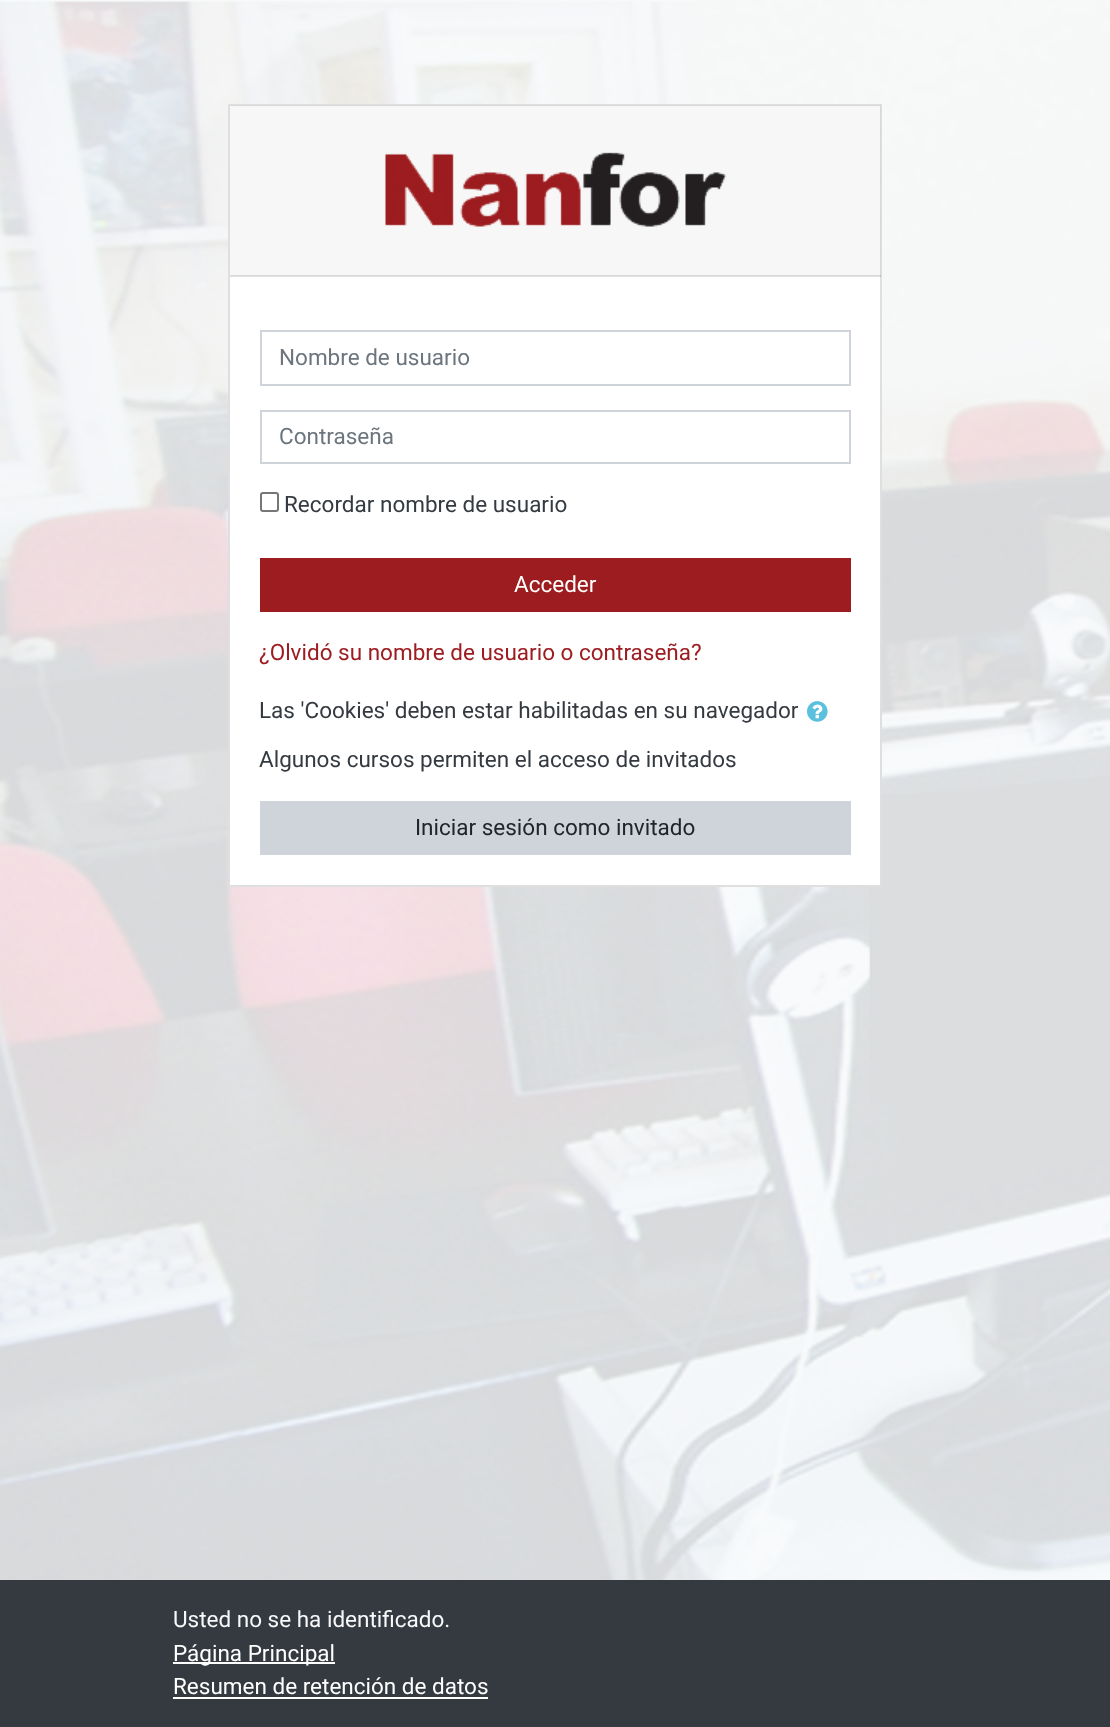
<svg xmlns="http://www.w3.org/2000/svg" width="1110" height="1727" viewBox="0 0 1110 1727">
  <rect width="100%" height="100%" fill="#ffffff"/>
  <image x="0" y="0" width="1110" height="1580" href="img1.png"/>
  <rect x="229" y="105" width="652" height="781" fill="#ffffff" stroke="#dfdfdf" stroke-width="2"/>
  <rect x="230" y="105" width="651" height="171" fill="#000000" fill-opacity="0.03"/>
  <rect x="230" y="275" width="651" height="2" fill="#000000" fill-opacity="0.12"/>
  <image x="385" y="152" width="342" height="75" href="img2.png"/>
  <rect x="261" y="331" width="589" height="54" fill="none" stroke="#ced4da" stroke-width="2"/>
  <text x="279" y="365" font-family="Roboto" font-size="22.5" fill="#6c757d">Nombre de usuario</text>
  <rect x="261" y="411" width="589" height="52" fill="none" stroke="#ced4da" stroke-width="2"/>
  <text x="279" y="444" font-family="Roboto" font-size="22.5" fill="#6c757d">Contraseña</text>
  <rect x="261" y="493" width="17" height="18" rx="2" fill="none" stroke="#767676" stroke-width="2"/>
  <text x="284" y="512" font-family="Roboto" font-size="22.5" fill="#343a40">Recordar nombre de usuario</text>
  <rect x="260" y="558" width="591" height="54" fill="#9d1c20"/>
  <text x="514" y="592" font-family="Roboto" font-size="22.5" fill="#ffffff">Acceder</text>
  <text x="259" y="660" font-family="Roboto" font-size="22.5" fill="#9d1c20">¿Olvidó su nombre de usuario o contraseña?</text>
  <text x="259" y="718" font-family="Roboto" font-size="22.5" fill="#343a40">Las 'Cookies' deben estar habilitadas en su navegador</text>
  <image x="807" y="701" width="21" height="21" href="img3.png"/>
  <text x="259" y="767" font-family="Roboto" font-size="22.5" fill="#343a40">Algunos cursos permiten el acceso de invitados</text>
  <rect x="260" y="801" width="591" height="54" fill="#ced4da"/>
  <text x="415" y="835" font-family="Roboto" font-size="22.5" fill="#212529">Iniciar sesión como invitado</text>
  <rect x="0" y="1580" width="1110" height="147" fill="#343a40"/>
  <text x="173" y="1627" font-family="Roboto" font-size="22.5" fill="#f8f9fa">Usted no se ha identificado.</text>
  <rect x="173" y="1662" width="162" height="2" fill="#ffffff"/>
  <text x="173" y="1661" font-family="Roboto" font-size="22.5" fill="#ffffff">Página Principal</text>
  <text x="173" y="1694" font-family="Roboto" font-size="22.5" fill="#ffffff">Resumen de retención de datos</text>
  <rect x="173" y="1697" width="315" height="2" fill="#ffffff"/>
</svg>
